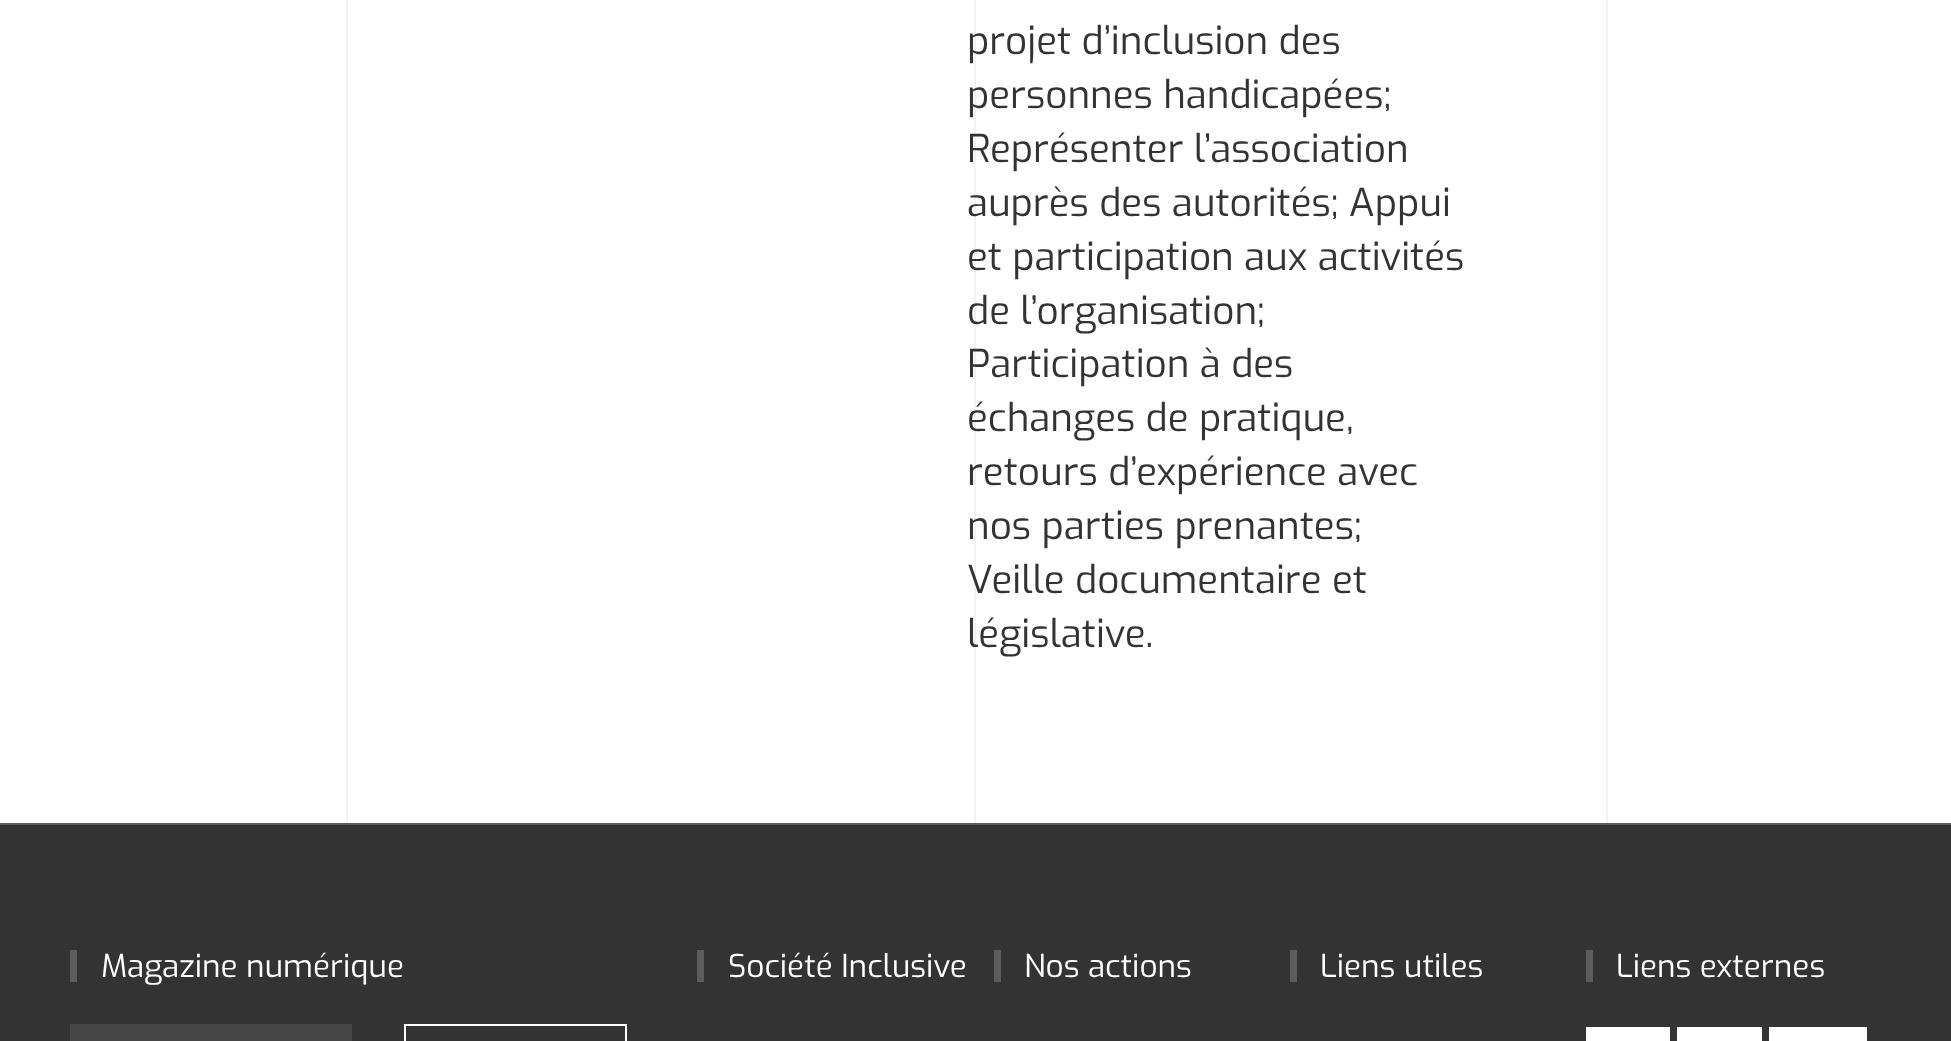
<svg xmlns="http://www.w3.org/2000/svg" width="1951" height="1041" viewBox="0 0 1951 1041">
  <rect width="100%" height="100%" fill="#ffffff"/>
  <image x="346" y="0" width="1262" height="823" href="img1.png"/>
  <text x="967" y="54" font-family="Exo" font-size="38.5" fill="#333333">projet d’inclusion des</text>
  <text x="967" y="108" font-family="Exo" font-size="38.5" fill="#333333">personnes handicapées;</text>
  <text x="967" y="162" font-family="Exo" font-size="38.5" fill="#333333">Représenter l’association</text>
  <text x="967" y="216" font-family="Exo" font-size="38.5" fill="#333333">auprès des autorités; Appui</text>
  <text x="967" y="270" font-family="Exo" font-size="38.5" fill="#333333">et participation aux activités</text>
  <text x="967" y="324" font-family="Exo" font-size="38.5" fill="#333333">de l’organisation;</text>
  <text x="967" y="377" font-family="Exo" font-size="38.5" fill="#333333">Participation à des</text>
  <text x="967" y="431" font-family="Exo" font-size="38.5" fill="#333333">échanges de pratique,</text>
  <text x="967" y="485" font-family="Exo" font-size="38.5" fill="#333333">retours d’expérience avec</text>
  <text x="967" y="539" font-family="Exo" font-size="38.5" fill="#333333">nos parties prenantes;</text>
  <text x="967" y="593" font-family="Exo" font-size="38.5" fill="#333333">Veille documentaire et</text>
  <text x="967" y="647" font-family="Exo" font-size="38.5" fill="#333333">législative.</text>
  <rect x="0" y="825" width="1951" height="216" fill="#333333"/>
  <rect x="0" y="823" width="1951" height="2" fill="#5c5c5c"/>
  <rect x="70" y="950" width="7" height="32" fill="#5c5c5c"/>
  <text x="101" y="977" font-family="Exo" font-size="31.5" fill="#ffffff">Magazine numérique</text>
  <rect x="70" y="1024" width="282" height="17" fill="#474747"/>
  <rect x="405" y="1025" width="221" height="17" fill="none" stroke="#ffffff" stroke-width="2"/>
  <rect x="697" y="950" width="7" height="32" fill="#5c5c5c"/>
  <text x="728" y="977" font-family="Exo" font-size="31.5" fill="#ffffff">Société Inclusive</text>
  <rect x="994" y="950" width="7" height="32" fill="#5c5c5c"/>
  <text x="1024" y="977" font-family="Exo" font-size="31.5" fill="#ffffff">Nos actions</text>
  <rect x="1290" y="950" width="7" height="32" fill="#5c5c5c"/>
  <text x="1320" y="977" font-family="Exo" font-size="31.5" fill="#ffffff">Liens utiles</text>
  <rect x="1586" y="950" width="7" height="32" fill="#5c5c5c"/>
  <text x="1616" y="977" font-family="Exo" font-size="31.5" fill="#ffffff">Liens externes</text>
  <rect x="1586" y="1027" width="84" height="14" fill="#ffffff"/>
  <rect x="1677" y="1027" width="85" height="14" fill="#ffffff"/>
  <rect x="1769" y="1027" width="98" height="14" fill="#ffffff"/>
</svg>
